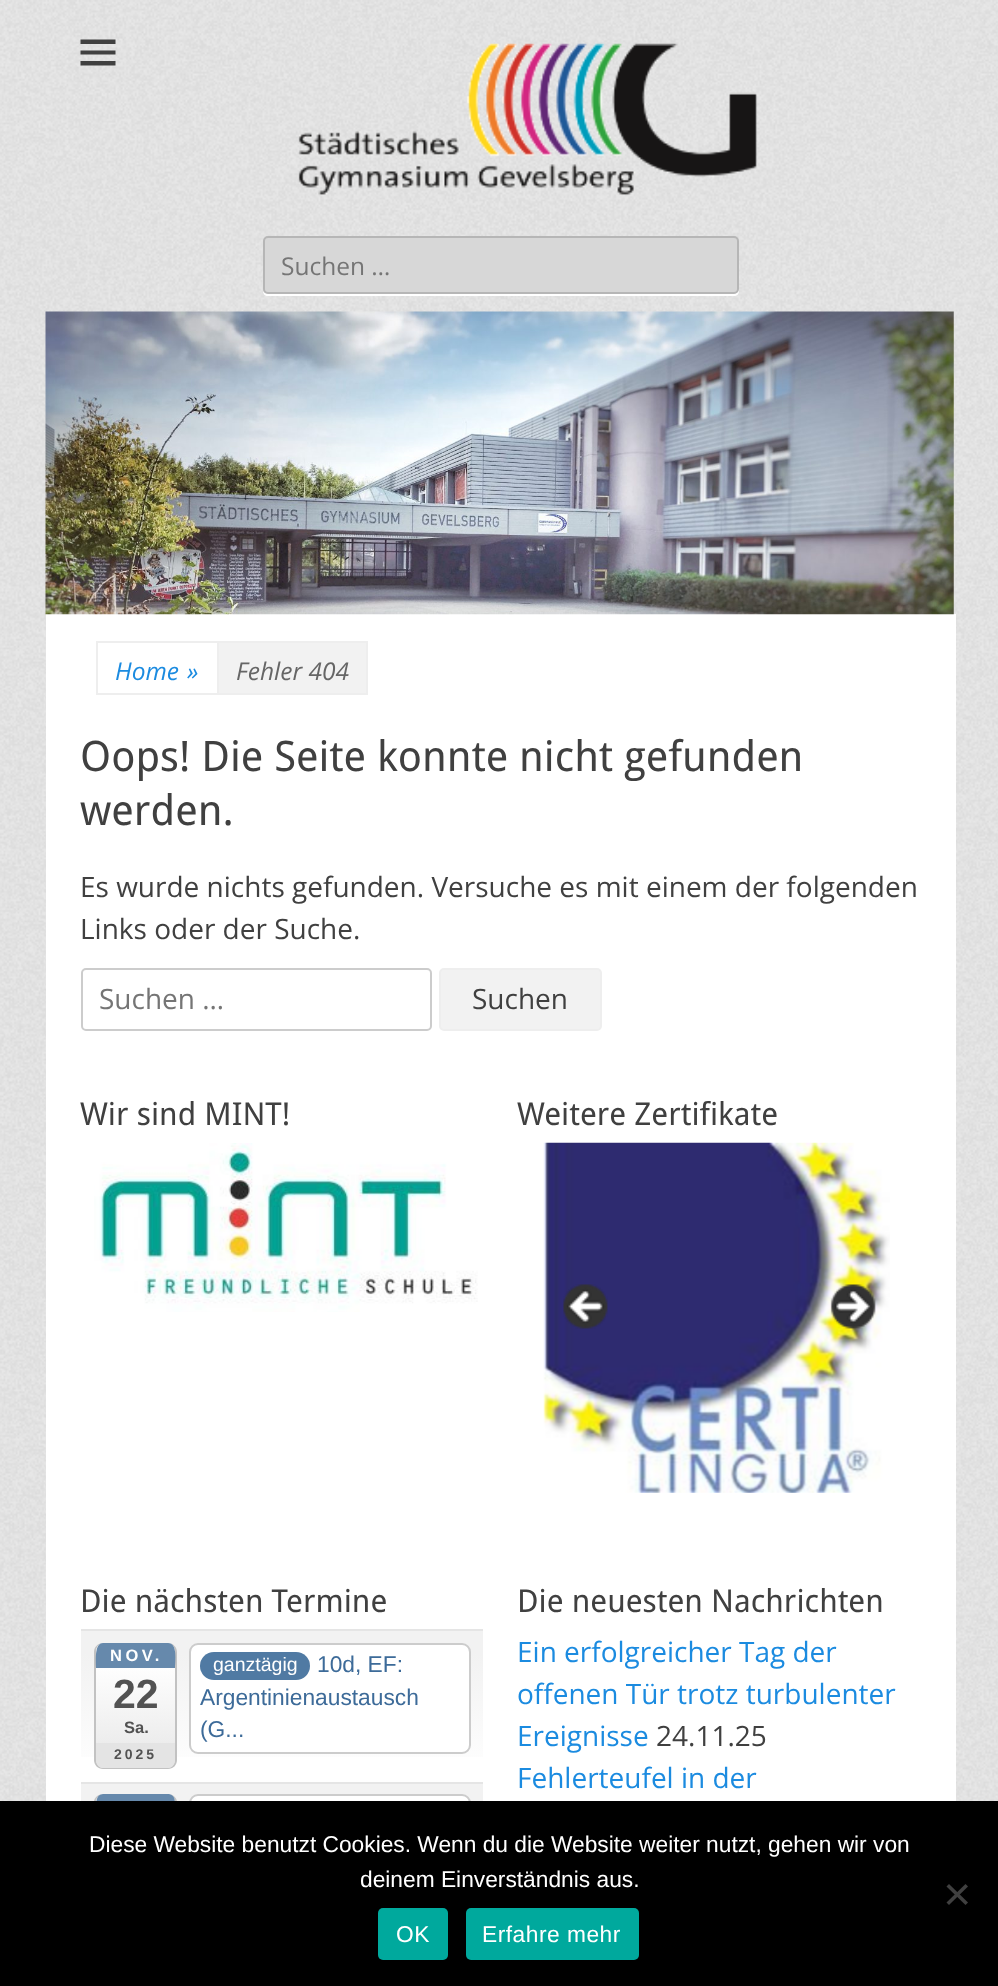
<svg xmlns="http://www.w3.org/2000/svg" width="998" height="1986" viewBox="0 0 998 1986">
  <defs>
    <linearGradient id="g1" gradientUnits="userSpaceOnUse" x1="282" y1="1631" x2="282" y2="1782"><stop offset="0" stop-color="#f2f2f2"/><stop offset="0.15" stop-color="#f2f2f2"/><stop offset="1" stop-color="#ffffff"/></linearGradient>
    <clipPath id="clip1"><rect x="95" y="1643" width="82" height="126" rx="9"/></clipPath>
    <linearGradient id="g2" gradientUnits="userSpaceOnUse" x1="136" y1="1643" x2="136" y2="1768"><stop offset="0" stop-color="#ffffff"/><stop offset="0.16" stop-color="#ffffff"/><stop offset="1" stop-color="#e7e7e7"/></linearGradient>
    <linearGradient id="g3" gradientUnits="userSpaceOnUse" x1="282" y1="1783" x2="282" y2="1932"><stop offset="0" stop-color="#f2f2f2"/><stop offset="0.15" stop-color="#f2f2f2"/><stop offset="1" stop-color="#ffffff"/></linearGradient>
    <clipPath id="clip2"><rect x="95" y="1794" width="82" height="128" rx="9"/></clipPath>
    <linearGradient id="g4" gradientUnits="userSpaceOnUse" x1="136" y1="1794" x2="136" y2="1920"><stop offset="0" stop-color="#ffffff"/><stop offset="0.16" stop-color="#ffffff"/><stop offset="1" stop-color="#e7e7e7"/></linearGradient>
  </defs>
  <rect width="100%" height="100%" fill="#ffffff"/>
  <image x="0" y="0" width="998" height="1801" href="img1.png"/>
  <path d="M80.5 65.5V61H115.5V65.5ZM80.5 39.5H115.5V44H80.5ZM80.5 54.5V50.5H115.5V54.5Z" fill="#404040"/>
  <image x="298" y="43" width="459" height="152" href="img2.png"/>
  <path d="M263 291C263 294 265 296 268 296H734C737 296 739 294 739 291V243L738 241V289C738 292 736 294 733 294H268C266 294 264 293 263 291Z" fill="#ffffff"/>
  <rect x="264" y="237" width="474" height="56" rx="4" fill="#d7d7d7" stroke="#b6b6b6" stroke-width="2"/>
  <text x="281" y="275" font-family="Open Sans" font-size="24.5" fill="#757575">Suchen …</text>
  <rect x="46" y="614" width="910" height="1187" fill="#ffffff"/>
  <image x="45" y="311" width="909" height="304" href="img3.png"/>
  <rect x="97" y="642" width="121" height="52" fill="none" stroke="#eeeeee" stroke-width="2"/>
  <text x="115" y="680" font-family="Open Sans" font-size="24.5" font-style="italic" fill="#1b8be0">Home</text>
  <text x="187" y="680" font-family="Open Sans" font-size="24.5" font-style="italic" fill="#1b8be0">»</text>
  <rect x="218" y="642" width="149" height="52" fill="#f2f2f2" stroke="#eeeeee" stroke-width="2"/>
  <text x="236" y="680" font-family="Open Sans" font-size="24.5" font-style="italic" fill="#666666">Fehler 404</text>
  <text x="80" y="771" font-family="Droid Sans" font-size="42" fill="#404040">Oops! Die Seite konnte nicht gefunden</text>
  <text x="80" y="825" font-family="Droid Sans" font-size="42" fill="#404040">werden.</text>
  <text x="80" y="897" font-family="Open Sans" font-size="28" fill="#404040">Es wurde nichts gefunden. Versuche es mit einem der folgenden</text>
  <text x="80" y="939" font-family="Open Sans" font-size="28" fill="#404040">Links oder der Suche.</text>
  <rect x="82" y="969" width="349" height="61" rx="4" fill="none" stroke="#cccccc" stroke-width="2"/>
  <text x="99" y="1009" font-family="Open Sans" font-size="28" fill="#757575">Suchen …</text>
  <rect x="440" y="969" width="161" height="61" rx="4" fill="#f2f2f2" stroke="#eeeeee" stroke-width="2"/>
  <text x="472" y="1009" font-family="Open Sans" font-size="28" fill="#404040">Suchen</text>
  <text x="80" y="1125" font-family="Droid Sans" font-size="31.5" fill="#404040">Wir sind MINT!</text>
  <image x="94" y="1143" width="384" height="169" href="img4.png"/>
  <text x="517" y="1125" font-family="Droid Sans" font-size="31.5" fill="#404040">Weitere Zertifikate</text>
  <image x="543" y="1142" width="347" height="351" href="img5.png"/>
  <image x="563" y="1284" width="45" height="45" href="img6.png"/>
  <image x="830" y="1284" width="46" height="45" href="img7.png"/>
  <text x="80" y="1612" font-family="Droid Sans" font-size="31.5" fill="#404040">Die nächsten Termine</text>
  <rect x="81" y="1631" width="402" height="126" fill="url(#g1)"/>
  <rect x="81" y="1629" width="402" height="2" fill="#e5e5e5"/>
  <g clip-path="url(#clip1)">
    <rect x="96" y="1643" width="79" height="125" fill="url(#g2)"/>
  </g>
  <path d="M103 1643H168C173 1643 177 1647 177 1652V1760C177 1765 173 1769 168 1769H103C98 1769 94 1765 94 1760V1652C94 1647 98 1643 103 1643ZM103 1643H168C172 1643 175 1647 175 1652V1760C175 1764 172 1768 168 1768H103C99 1768 96 1764 96 1760V1652C96 1647 99 1643 103 1643Z" fill="#c2c2c2" fill-rule="evenodd"/>
  <path d="M103 1643C94 1643 96 1662 96 1668H175C175 1662 178 1643 168 1643Z" fill="#6689ac"/>
  <text x="110" y="1661" font-family="Liberation Sans" font-size="16.5" font-weight="bold" letter-spacing="3.5" fill="#ffffff">NOV.</text>
  <text x="113" y="1708" font-family="Liberation Sans" font-size="41" font-weight="bold" fill="#525252">22</text>
  <text x="124" y="1733" font-family="Liberation Sans" font-size="16.5" font-weight="bold" fill="#525252">Sa.</text>
  <path d="M175 1760V1743H96V1760C96 1764 99 1768 103 1768H168C172 1768 175 1764 175 1760Z" fill="#e4e4e4"/>
  <text x="114" y="1759" font-family="Liberation Sans" font-size="14" font-weight="bold" letter-spacing="3" fill="#525252">2025</text>
  <rect x="190" y="1644" width="280" height="109" rx="8" fill="#ffffff" stroke="#cccccc" stroke-width="2"/>
  <rect x="200" y="1652" width="110" height="28" rx="14" fill="#507aa3"/>
  <text x="213" y="1671" font-family="Liberation Sans" font-size="19.5" fill="#ffffff">ganztägig</text>
  <text x="317" y="1672" font-family="Liberation Sans" font-size="22.75" fill="#3d6b99">10d, EF:</text>
  <text x="200" y="1705" font-family="Liberation Sans" font-size="22.75" fill="#3d6b99">Argentinienaustausch</text>
  <text x="200" y="1737" font-family="Liberation Sans" font-size="22.75" fill="#3d6b99">(G...</text>
  <rect x="81" y="1784" width="402" height="17" fill="url(#g3)"/>
  <rect x="81" y="1782" width="402" height="2" fill="#e5e5e5"/>
  <g clip-path="url(#clip2)">
    <rect x="96" y="1794" width="79" height="7" fill="url(#g4)"/>
  </g>
  <path d="M103 1794H168C173 1794 177 1798 177 1802V1913C177 1918 173 1922 168 1922H103C98 1922 94 1918 94 1913V1802C94 1798 98 1794 103 1794ZM103 1794H168C172 1794 175 1798 175 1802V1913C175 1917 172 1920 168 1920H103C99 1920 96 1917 96 1913V1802C96 1798 99 1794 103 1794Z" fill="#c2c2c2" fill-rule="evenodd"/>
  <path d="M103 1794H169C176 1795 175 1803 175 1808V1818H96V1808C96 1803 96 1794 103 1794Z" fill="#6689ac"/>
  <rect x="190" y="1795" width="280" height="77" rx="8" fill="#ffffff" stroke="#cccccc" stroke-width="2"/>
  <text x="517" y="1612" font-family="Droid Sans" font-size="31.5" fill="#404040">Die neuesten Nachrichten</text>
  <text x="517" y="1662" font-family="Open Sans" font-size="28" fill="#1b8be0">Ein erfolgreicher Tag der</text>
  <text x="517" y="1704" font-family="Open Sans" font-size="28" fill="#1b8be0">offenen Tür trotz turbulenter</text>
  <text x="517" y="1746" font-family="Open Sans" font-size="28" fill="#1b8be0">Ereignisse</text>
  <text x="656" y="1746" font-family="Open Sans" font-size="28" fill="#404040">24.11.25</text>
  <text x="517" y="1788" font-family="Open Sans" font-size="28" fill="#1b8be0">Fehlerteufel in der</text>
  <rect x="0" y="1801" width="998" height="185" fill="#000000"/>
  <text x="89" y="1852" font-family="Liberation Sans" font-size="22.75" fill="#ffffff">Diese Website benutzt Cookies. Wenn du die Website weiter nutzt, gehen wir von</text>
  <text x="360" y="1887" font-family="Liberation Sans" font-size="22.75" fill="#ffffff">deinem Einverständnis aus.</text>
  <path d="M965.5 1884L968 1886.5L949 1905L946.5 1902.5Z" fill="#404040"/>
  <path d="M946.5 1886.5L949 1884L968 1902.5L965.5 1905Z" fill="#404040"/>
  <rect x="378" y="1908" width="70" height="52" rx="5" fill="#00a99d"/>
  <text x="396" y="1942" font-family="Liberation Sans" font-size="22.75" letter-spacing="0.5" fill="#ffffff">OK</text>
  <rect x="466" y="1908" width="173" height="52" rx="5" fill="#00a99d"/>
  <text x="482" y="1942" font-family="Liberation Sans" font-size="22.75" letter-spacing="0.5" fill="#ffffff">Erfahre mehr</text>
</svg>
